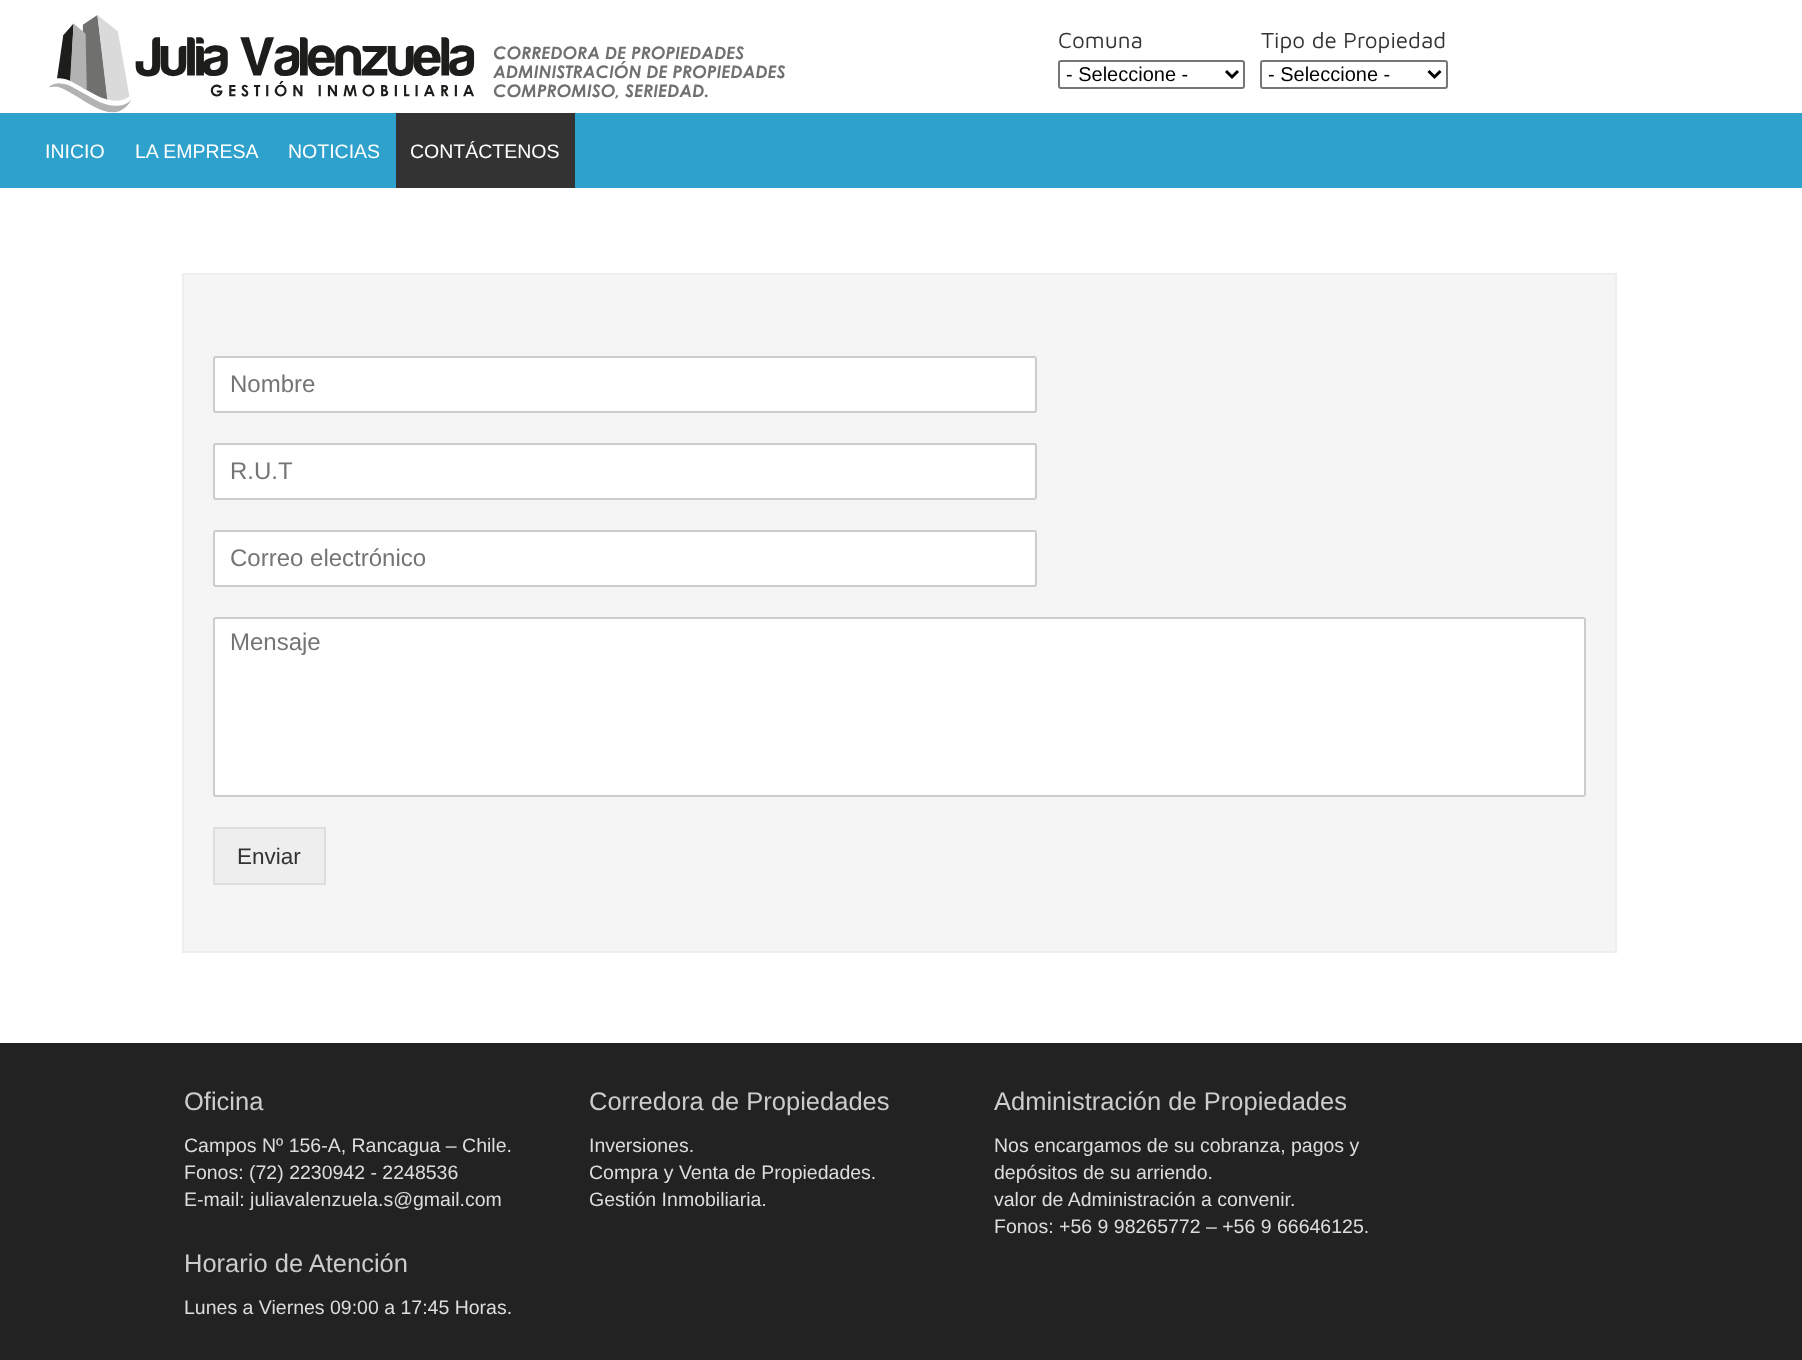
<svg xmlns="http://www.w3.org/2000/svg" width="1802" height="1360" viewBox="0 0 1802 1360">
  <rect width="100%" height="100%" fill="#ffffff"/>
  <image x="48" y="15" width="738" height="98" href="img1.png"/>
  <text x="1058" y="48" font-family="Maven Pro" font-size="22.5" fill="#333333">Comuna</text>
  <rect x="1059" y="61" width="185" height="27" rx="2" fill="none" stroke="#767676" stroke-width="2"/>
  <path d="M1226 71L1232 77L1238 71" fill="none" stroke="#000000" stroke-width="3"/>
  <text x="1066" y="81" font-family="Liberation Sans" font-size="20" fill="#000000">- Seleccione -</text>
  <text x="1261" y="48" font-family="Maven Pro" font-size="22.5" fill="#333333">Tipo de Propiedad</text>
  <rect x="1261" y="61" width="186" height="27" rx="2" fill="none" stroke="#767676" stroke-width="2"/>
  <path d="M1428.5 71L1434.5 77L1440.5 71" fill="none" stroke="#000000" stroke-width="3"/>
  <text x="1268" y="81" font-family="Liberation Sans" font-size="20" fill="#000000">- Seleccione -</text>
  <rect x="0" y="113" width="1802" height="75" fill="#2ea2cc"/>
  <text x="45" y="158" font-family="Liberation Sans" font-size="19.5" fill="#ffffff">INICIO</text>
  <text x="135" y="158" font-family="Liberation Sans" font-size="19.5" fill="#ffffff">LA EMPRESA</text>
  <text x="288" y="158" font-family="Liberation Sans" font-size="19.5" fill="#ffffff">NOTICIAS</text>
  <rect x="396" y="113" width="179" height="75" fill="#333333"/>
  <text x="410" y="158" font-family="Liberation Sans" font-size="19.5" fill="#ffffff">CONTÁCTENOS</text>
  <rect x="183" y="274" width="1433" height="678" fill="#f5f5f5" stroke="#eeeeee" stroke-width="2"/>
  <rect x="214" y="357" width="822" height="55" rx="2" fill="#ffffff" stroke="#cccccc" stroke-width="2"/>
  <text x="230" y="392" font-family="Liberation Sans" font-size="24" fill="#757575">Nombre</text>
  <rect x="214" y="444" width="822" height="55" rx="2" fill="#ffffff" stroke="#cccccc" stroke-width="2"/>
  <text x="230" y="479" font-family="Liberation Sans" font-size="24" fill="#757575">R.U.T</text>
  <rect x="214" y="531" width="822" height="55" rx="2" fill="#ffffff" stroke="#cccccc" stroke-width="2"/>
  <text x="230" y="566" font-family="Liberation Sans" font-size="24" fill="#757575">Correo electrónico</text>
  <rect x="214" y="618" width="1371" height="178" rx="2" fill="#ffffff" stroke="#cccccc" stroke-width="2"/>
  <text x="230" y="650" font-family="Liberation Sans" font-size="24" fill="#757575">Mensaje</text>
  <rect x="214" y="828" width="111" height="56" fill="#eeeeee" stroke="#dddddd" stroke-width="2"/>
  <text x="237" y="864" font-family="Liberation Sans" font-size="22.5" fill="#333333">Enviar</text>
  <rect x="0" y="1043" width="1802" height="317" fill="#222222"/>
  <text x="184" y="1110" font-family="Liberation Sans" font-size="25.5" fill="#cccccc">Oficina</text>
  <text x="184" y="1152" font-family="Liberation Sans" font-size="19.5" fill="#dddddd">Campos Nº 156-A, Rancagua – Chile.</text>
  <text x="184" y="1179" font-family="Liberation Sans" font-size="19.5" fill="#dddddd">Fonos: (72) 2230942 - 2248536</text>
  <text x="184" y="1206" font-family="Liberation Sans" font-size="19.5" fill="#dddddd">E-mail: juliavalenzuela.s@gmail.com</text>
  <text x="184" y="1272" font-family="Liberation Sans" font-size="25.5" fill="#cccccc">Horario de Atención</text>
  <text x="184" y="1314" font-family="Liberation Sans" font-size="19.5" fill="#dddddd">Lunes a Viernes 09:00 a 17:45 Horas.</text>
  <text x="589" y="1110" font-family="Liberation Sans" font-size="25.5" fill="#cccccc">Corredora de Propiedades</text>
  <text x="589" y="1152" font-family="Liberation Sans" font-size="19.5" fill="#dddddd">Inversiones.</text>
  <text x="589" y="1179" font-family="Liberation Sans" font-size="19.5" fill="#dddddd">Compra y Venta de Propiedades.</text>
  <text x="589" y="1206" font-family="Liberation Sans" font-size="19.5" fill="#dddddd">Gestión Inmobiliaria.</text>
  <text x="994" y="1110" font-family="Liberation Sans" font-size="25.5" fill="#cccccc">Administración de Propiedades</text>
  <text x="994" y="1152" font-family="Liberation Sans" font-size="19.5" fill="#dddddd">Nos encargamos de su cobranza, pagos y</text>
  <text x="994" y="1179" font-family="Liberation Sans" font-size="19.5" fill="#dddddd">depósitos de su arriendo.</text>
  <text x="994" y="1206" font-family="Liberation Sans" font-size="19.5" fill="#dddddd">valor de Administración a convenir.</text>
  <text x="994" y="1233" font-family="Liberation Sans" font-size="19.5" fill="#dddddd">Fonos: +56 9 98265772 – +56 9 66646125.</text>
</svg>
